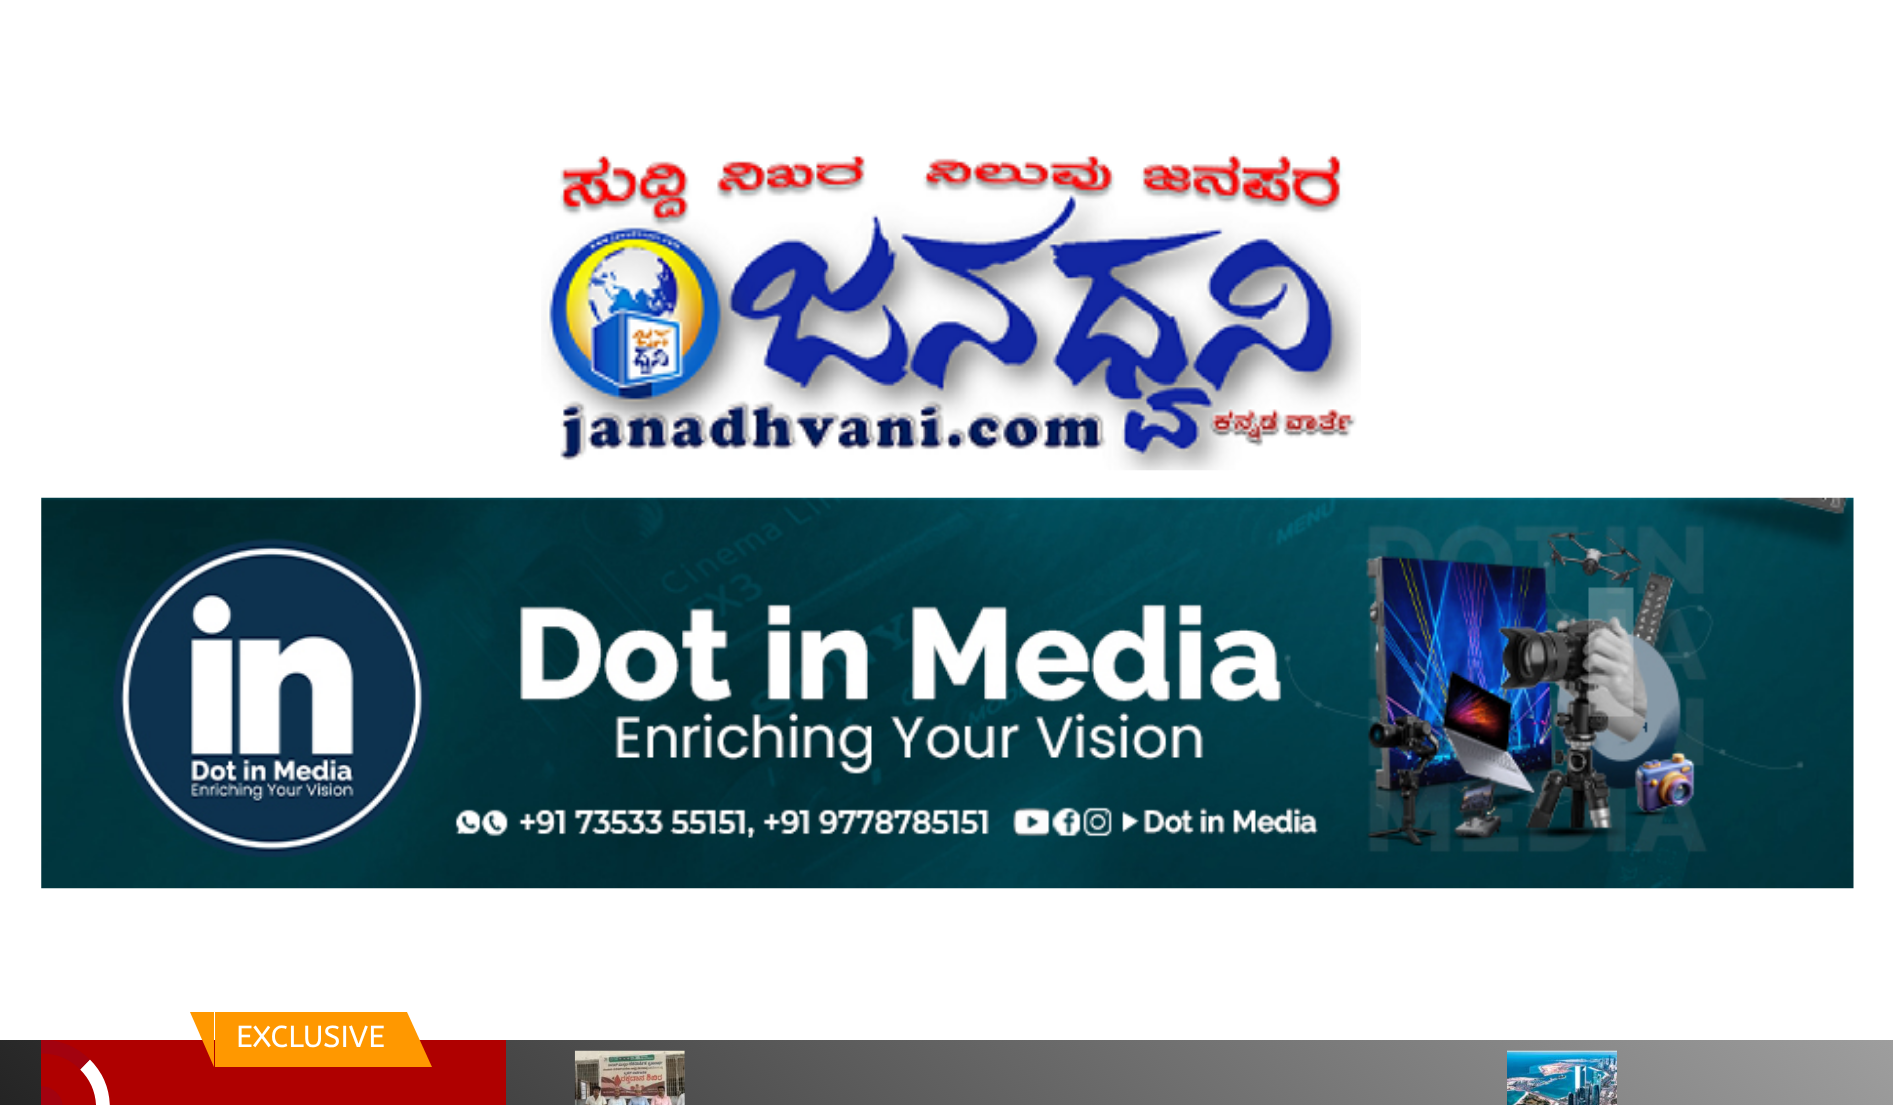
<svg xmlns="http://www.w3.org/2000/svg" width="1893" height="1105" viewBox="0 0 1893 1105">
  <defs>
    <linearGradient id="g1" gradientUnits="userSpaceOnUse" x1="440" y1="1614" x2="1455" y2="599"><stop offset="0" stop-color="#202020"/><stop offset="1" stop-color="#9e9e9e"/></linearGradient>
    <clipPath id="clip1"><rect x="41" y="1040" width="465" height="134"/></clipPath>
  </defs>
  <rect width="100%" height="100%" fill="#ffffff"/>
  <image x="541" y="153" width="820" height="318" href="img1.png"/>
  <image x="41" y="497" width="1813" height="392" href="img2.png"/>
  <rect x="0" y="1040" width="1893" height="65" fill="url(#g1)"/>
  <rect x="41" y="1040" width="465" height="65" fill="#af0000"/>
  <rect x="215" y="1012" width="192" height="55" fill="#ff9800"/>
  <path d="M190 1012H214V1067Z" fill="#ff9800"/>
  <text x="236" y="1047" font-family="ABeeZee" font-size="30.25" fill="#ffffff">EXCLUSIVE</text>
  <path d="M432 1067H407V1012Z" fill="#ff9800"/>
  <path d="M85 1064.5C109 1088.5 109 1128 85 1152" fill="none" stroke="#ffffff" stroke-width="13.8"/>
  <g clip-path="url(#clip1)">
    <path d="M-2.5 1064.5C21.5 1040.5 61 1040.5 85 1064.5" fill="none" stroke="#a2020f" stroke-width="13.8"/>
  </g>
  <path d="M41 1086C53 1086 63 1096 63 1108V1105C63 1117 53 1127 41 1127Z" fill="#a2020f"/>
  <image x="574" y="1050" width="111" height="55" href="img3.png"/>
  <image x="1507" y="1050" width="110" height="55" href="img4.png"/>
</svg>
